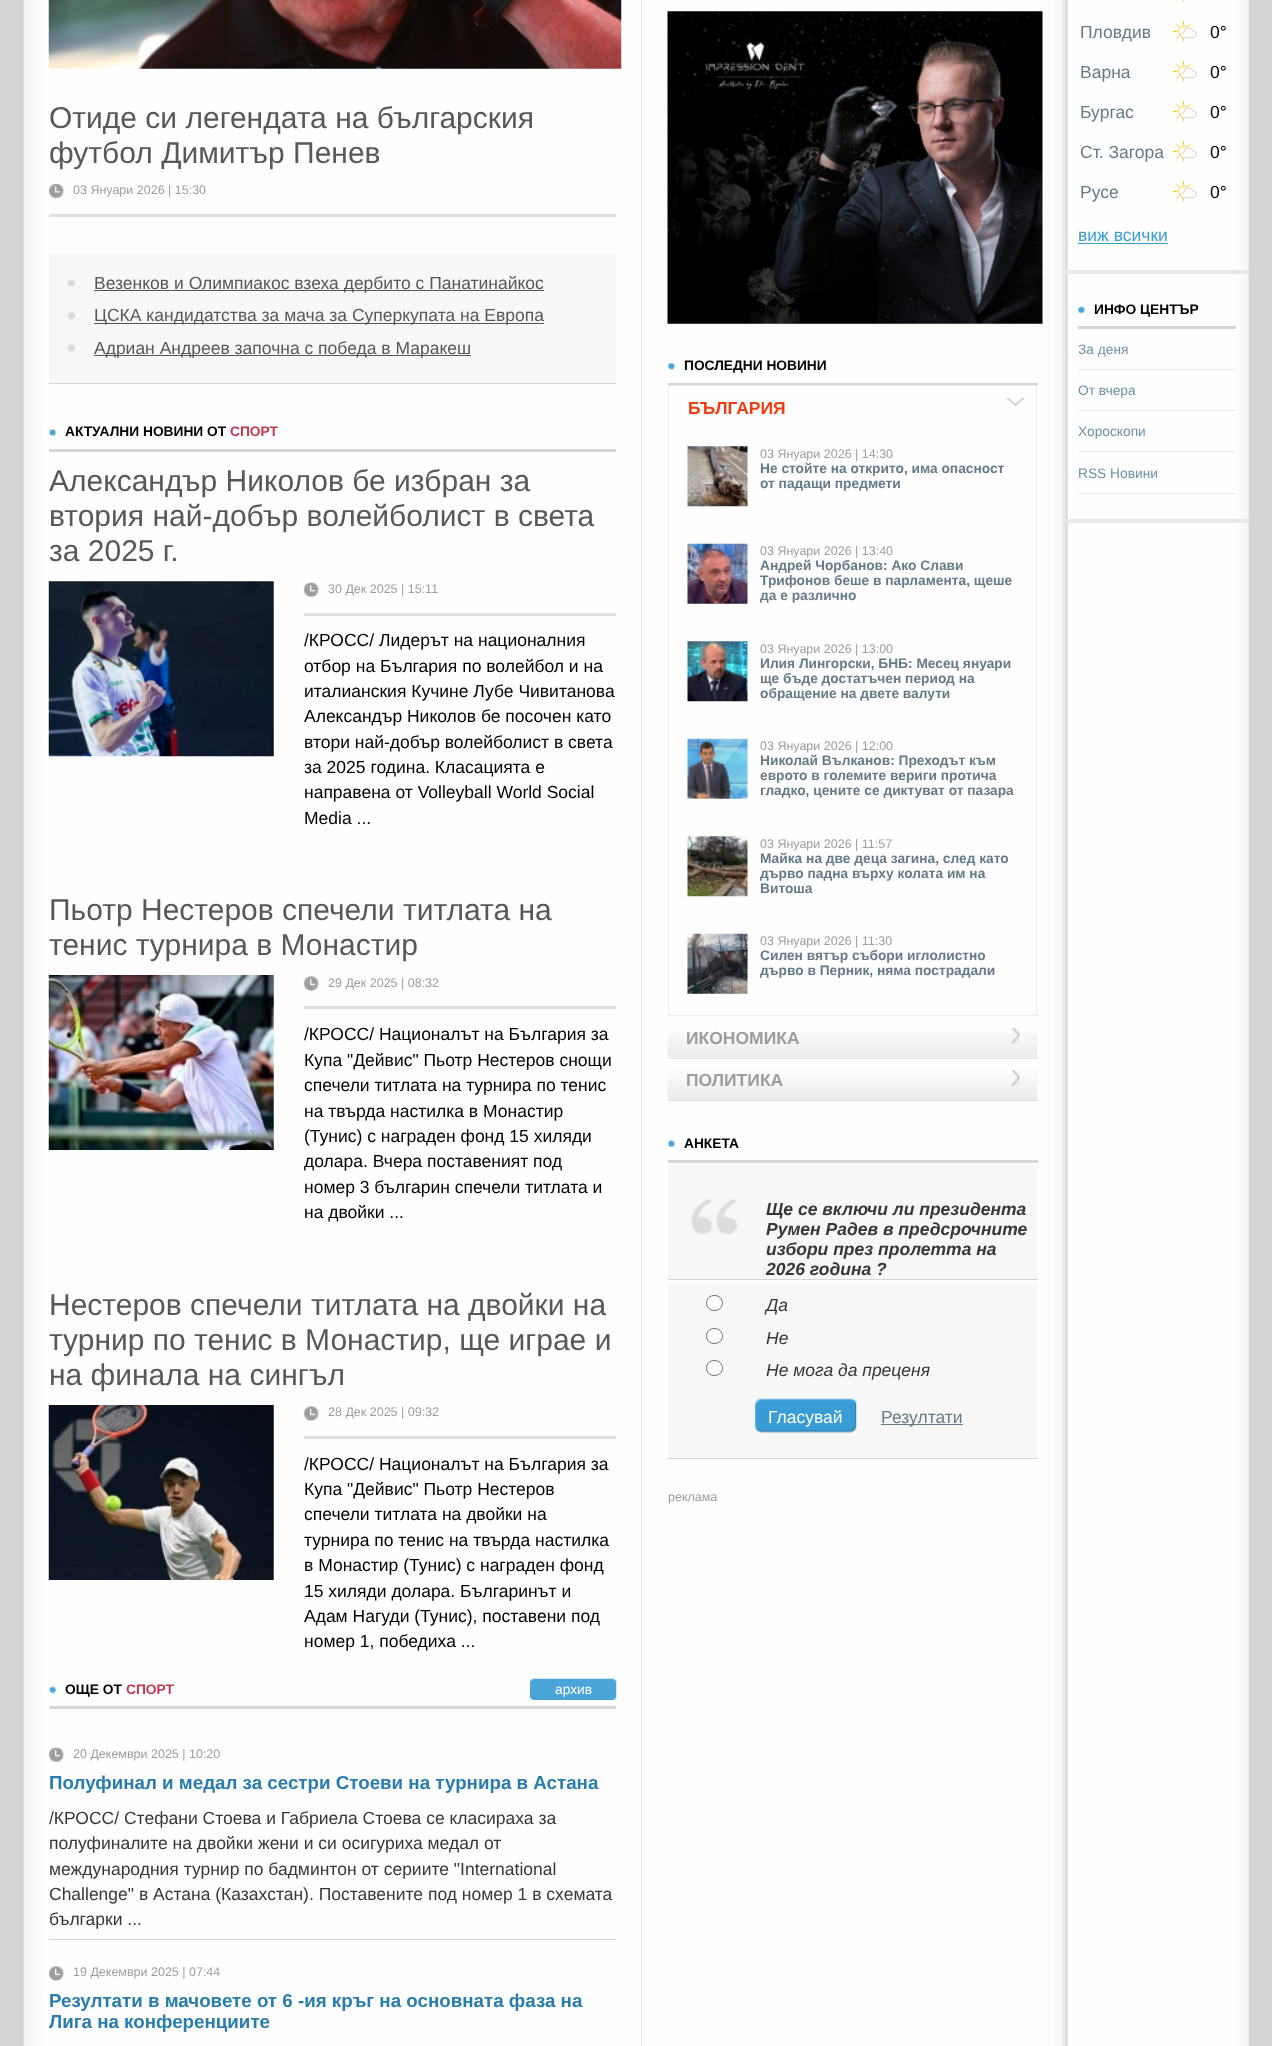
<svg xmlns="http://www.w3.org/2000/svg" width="1272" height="2046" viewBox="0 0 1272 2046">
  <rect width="100%" height="100%" fill="#d4d4d4"/>
  <image x="23" y="0" width="1226" height="2046" href="img1.png"/>
  <rect x="641" y="0" width="1" height="2046" fill="#ebeae8"/>
  <image x="48" y="0" width="574" height="69" href="img2.png"/>
  <text x="49" y="128" font-family="Liberation Sans" font-size="30" fill="#585858">Отиде си легендата на българския</text>
  <text x="49" y="163" font-family="Liberation Sans" font-size="30" fill="#585858">футбол Димитър Пенев</text>
  <rect x="49" y="214" width="567" height="3" fill="#dfdfdf"/>
  <image x="48" y="183" width="16" height="16" href="img3.png"/>
  <text x="73" y="194" font-family="Liberation Sans" font-size="12.5" fill="#9d9d9d">03 Януари 2026 | 15:30</text>
  <rect x="49" y="254" width="567" height="129" fill="#f7f7f7"/>
  <rect x="49" y="383" width="567" height="1" fill="#d5d5d5"/>
  <image x="67" y="279" width="8" height="8" href="img4.png"/>
  <rect x="94" y="290" width="450" height="1" fill="#585858"/>
  <text x="94" y="289" font-family="Liberation Sans" font-size="17.5" fill="#585858">Везенков и Олимпиакос взеха дербито с Панатинайкос</text>
  <image x="67" y="311" width="8" height="9" href="img5.png"/>
  <rect x="94" y="323" width="450" height="1" fill="#585858"/>
  <text x="94" y="321" font-family="Liberation Sans" font-size="17.5" fill="#585858">ЦСКА кандидатства за мача за Суперкупата на Европа</text>
  <image x="67" y="344" width="8" height="8" href="img4.png"/>
  <rect x="94" y="355" width="377" height="1" fill="#585858"/>
  <text x="94" y="354" font-family="Liberation Sans" font-size="17.5" fill="#585858">Адриан Андреев започна с победа в Маракеш</text>
  <rect x="49" y="449" width="567" height="3" fill="#d5d5d5"/>
  <image x="49" y="428" width="8" height="8" href="img6.png"/>
  <text x="65" y="436" font-family="Liberation Sans" font-size="13.75" font-weight="bold" fill="#000000">АКТУАЛНИ НОВИНИ ОТ</text>
  <text x="230" y="436" font-family="Liberation Sans" font-size="13.75" font-weight="bold" fill="#c2364d">СПОРТ</text>
  <text x="49" y="491" font-family="Liberation Sans" font-size="30" fill="#585858">Александър Николов бе избран за</text>
  <text x="49" y="526" font-family="Liberation Sans" font-size="30" fill="#585858">втория най-добър волейболист в света</text>
  <text x="49" y="561" font-family="Liberation Sans" font-size="30" fill="#585858">за 2025 г.</text>
  <image x="48" y="581" width="226" height="176" href="img7.png"/>
  <rect x="304" y="613" width="312" height="3" fill="#dfdfdf"/>
  <image x="303" y="582" width="16" height="16" href="img8.png"/>
  <text x="328" y="593" font-family="Liberation Sans" font-size="12.5" fill="#9d9d9d">30 Дек 2025 | 15:11</text>
  <text x="304" y="646" font-family="Liberation Sans" font-size="17.5" fill="#000000">/КРОСС/ Лидерът на националния</text>
  <text x="304" y="672" font-family="Liberation Sans" font-size="17.5" fill="#000000">отбор на България по волейбол и на</text>
  <text x="304" y="697" font-family="Liberation Sans" font-size="17.5" fill="#000000">италианския Кучине Лубе Чивитанова</text>
  <text x="304" y="722" font-family="Liberation Sans" font-size="17.5" fill="#000000">Александър Николов бе посочен като</text>
  <text x="304" y="748" font-family="Liberation Sans" font-size="17.5" fill="#000000">втори най-добър волейболист в света</text>
  <text x="304" y="773" font-family="Liberation Sans" font-size="17.5" fill="#000000">за 2025 година. Класацията е</text>
  <text x="304" y="798" font-family="Liberation Sans" font-size="17.5" fill="#000000">направена от Volleyball World Social</text>
  <text x="304" y="824" font-family="Liberation Sans" font-size="17.5" fill="#000000">Media ...</text>
  <text x="49" y="920" font-family="Liberation Sans" font-size="30" fill="#585858">Пьотр Нестеров спечели титлата на</text>
  <text x="49" y="955" font-family="Liberation Sans" font-size="30" fill="#585858">тенис турнира в Монастир</text>
  <image x="48" y="975" width="226" height="175" href="img9.png"/>
  <rect x="304" y="1006" width="312" height="3" fill="#dfdfdf"/>
  <image x="303" y="976" width="16" height="15" href="img10.png"/>
  <text x="328" y="987" font-family="Liberation Sans" font-size="12.5" fill="#9d9d9d">29 Дек 2025 | 08:32</text>
  <text x="304" y="1040" font-family="Liberation Sans" font-size="17.5" fill="#000000">/КРОСС/ Националът на България за</text>
  <text x="304" y="1066" font-family="Liberation Sans" font-size="17.5" fill="#000000">Купа "Дейвис" Пьотр Нестеров снощи</text>
  <text x="304" y="1091" font-family="Liberation Sans" font-size="17.5" fill="#000000">спечели титлата на турнира по тенис</text>
  <text x="304" y="1117" font-family="Liberation Sans" font-size="17.5" fill="#000000">на твърда настилка в Монастир</text>
  <text x="304" y="1142" font-family="Liberation Sans" font-size="17.5" fill="#000000">(Тунис) с награден фонд 15 хиляди</text>
  <text x="304" y="1167" font-family="Liberation Sans" font-size="17.5" fill="#000000">долара. Вчера поставеният под</text>
  <text x="304" y="1193" font-family="Liberation Sans" font-size="17.5" fill="#000000">номер 3 българин спечели титлата и</text>
  <text x="304" y="1218" font-family="Liberation Sans" font-size="17.5" fill="#000000">на двойки ...</text>
  <text x="49" y="1315" font-family="Liberation Sans" font-size="30" fill="#585858">Нестеров спечели титлата на двойки на</text>
  <text x="49" y="1350" font-family="Liberation Sans" font-size="30" fill="#585858">турнир по тенис в Монастир, ще играе и</text>
  <text x="49" y="1385" font-family="Liberation Sans" font-size="30" fill="#585858">на финала на сингъл</text>
  <image x="48" y="1405" width="226" height="175" href="img11.png"/>
  <rect x="304" y="1436" width="312" height="3" fill="#dfdfdf"/>
  <image x="303" y="1406" width="16" height="15" href="img10.png"/>
  <text x="328" y="1416" font-family="Liberation Sans" font-size="12.5" fill="#9d9d9d">28 Дек 2025 | 09:32</text>
  <text x="304" y="1470" font-family="Liberation Sans" font-size="17.5" fill="#000000">/КРОСС/ Националът на България за</text>
  <text x="304" y="1495" font-family="Liberation Sans" font-size="17.5" fill="#000000">Купа "Дейвис" Пьотр Нестеров</text>
  <text x="304" y="1520" font-family="Liberation Sans" font-size="17.5" fill="#000000">спечели титлата на двойки на</text>
  <text x="304" y="1546" font-family="Liberation Sans" font-size="17.5" fill="#000000">турнира по тенис на твърда настилка</text>
  <text x="304" y="1571" font-family="Liberation Sans" font-size="17.5" fill="#000000">в Монастир (Тунис) с награден фонд</text>
  <text x="304" y="1597" font-family="Liberation Sans" font-size="17.5" fill="#000000">15 хиляди долара. Българинът и</text>
  <text x="304" y="1622" font-family="Liberation Sans" font-size="17.5" fill="#000000">Адам Нагуди (Тунис), поставени под</text>
  <text x="304" y="1647" font-family="Liberation Sans" font-size="17.5" fill="#000000">номер 1, победиха ...</text>
  <rect x="49" y="1706" width="567" height="3" fill="#d5d5d5"/>
  <image x="48" y="1686" width="9" height="8" href="img12.png"/>
  <text x="65" y="1694" font-family="Liberation Sans" font-size="13.75" font-weight="bold" fill="#000000">ОЩЕ ОТ</text>
  <text x="126" y="1694" font-family="Liberation Sans" font-size="13.75" font-weight="bold" fill="#c2364d">СПОРТ</text>
  <image x="530" y="1678" width="87" height="22" href="img13.png"/>
  <text x="555" y="1694" font-family="Liberation Sans" font-size="13.75" fill="#ffffff">архив</text>
  <image x="48" y="1747" width="16" height="16" href="img8.png"/>
  <text x="73" y="1758" font-family="Liberation Sans" font-size="12.5" fill="#9d9d9d">20 Декември 2025 | 10:20</text>
  <text x="49" y="1789" font-family="Liberation Sans" font-size="18.75" font-weight="bold" fill="#297dad">Полуфинал и медал за сестри Стоеви на турнира в Астана</text>
  <rect x="49" y="1939" width="567" height="1" fill="#d5d5d5"/>
  <text x="49" y="1824" font-family="Liberation Sans" font-size="17.5" fill="#373737">/КРОСС/ Стефани Стоева и Габриела Стоева се класираха за</text>
  <text x="49" y="1849" font-family="Liberation Sans" font-size="17.5" fill="#373737">полуфиналите на двойки жени и си осигуриха медал от</text>
  <text x="49" y="1875" font-family="Liberation Sans" font-size="17.5" fill="#373737">международния турнир по бадминтон от сериите "International</text>
  <text x="49" y="1900" font-family="Liberation Sans" font-size="17.5" fill="#373737">Challenge" в Астана (Казахстан). Поставените под номер 1 в схемата</text>
  <text x="49" y="1925" font-family="Liberation Sans" font-size="17.5" fill="#373737">българки ...</text>
  <image x="48" y="1966" width="16" height="15" href="img10.png"/>
  <text x="73" y="1976" font-family="Liberation Sans" font-size="12.5" fill="#9d9d9d">19 Декември 2025 | 07:44</text>
  <text x="49" y="2007" font-family="Liberation Sans" font-size="18.75" font-weight="bold" fill="#297dad">Резултати в мачовете от 6 -ия кръг на основната фаза на</text>
  <text x="49" y="2028" font-family="Liberation Sans" font-size="18.75" font-weight="bold" fill="#297dad">Лига на конференциите</text>
  <image x="667" y="11" width="376" height="313" href="img14.png"/>
  <rect x="668" y="383" width="370" height="2" fill="#d5d5d5"/>
  <image x="667" y="362" width="8" height="8" href="img15.png"/>
  <text x="684" y="370" font-family="Liberation Sans" font-size="13.75" font-weight="bold" fill="#000000">ПОСЛЕДНИ НОВИНИ</text>
  <rect x="668" y="385" width="370" height="1" fill="#ececec"/>
  <rect x="1036" y="385" width="1" height="631" fill="#ececec"/>
  <rect x="668" y="385" width="1" height="43" fill="#ececec"/>
  <text x="688" y="414" font-family="Liberation Sans" font-size="17.5" font-weight="bold" fill="#f03c12">БЪЛГАРИЯ</text>
  <image x="1006" y="397" width="19" height="9" href="img16.png"/>
  <rect x="668" y="1015" width="370" height="1" fill="#ececec"/>
  <rect x="668" y="428" width="1" height="588" fill="#ececec"/>
  <image x="687" y="446" width="61" height="61" href="img17.png"/>
  <text x="760" y="458" font-family="Liberation Sans" font-size="12.5" fill="#9d9d9d">03 Януари 2026 | 14:30</text>
  <text x="760" y="473" font-family="Liberation Sans" font-size="13.75" font-weight="bold" fill="#667b86">Не стойте на открито, има опасност</text>
  <text x="760" y="488" font-family="Liberation Sans" font-size="13.75" font-weight="bold" fill="#667b86">от падащи предмети</text>
  <image x="687" y="543" width="61" height="61" href="img18.png"/>
  <text x="760" y="555" font-family="Liberation Sans" font-size="12.5" fill="#9d9d9d">03 Януари 2026 | 13:40</text>
  <text x="760" y="570" font-family="Liberation Sans" font-size="13.75" font-weight="bold" fill="#667b86">Андрей Чорбанов: Ако Слави</text>
  <text x="760" y="585" font-family="Liberation Sans" font-size="13.75" font-weight="bold" fill="#667b86">Трифонов беше в парламента, щеше</text>
  <text x="760" y="600" font-family="Liberation Sans" font-size="13.75" font-weight="bold" fill="#667b86">да е различно</text>
  <image x="687" y="641" width="61" height="61" href="img19.png"/>
  <text x="760" y="653" font-family="Liberation Sans" font-size="12.5" fill="#9d9d9d">03 Януари 2026 | 13:00</text>
  <text x="760" y="668" font-family="Liberation Sans" font-size="13.75" font-weight="bold" fill="#667b86">Илия Лингорски, БНБ: Месец януари</text>
  <text x="760" y="683" font-family="Liberation Sans" font-size="13.75" font-weight="bold" fill="#667b86">ще бъде достатъчен период на</text>
  <text x="760" y="698" font-family="Liberation Sans" font-size="13.75" font-weight="bold" fill="#667b86">обращение на двете валути</text>
  <image x="687" y="738" width="61" height="61" href="img20.png"/>
  <text x="760" y="750" font-family="Liberation Sans" font-size="12.5" fill="#9d9d9d">03 Януари 2026 | 12:00</text>
  <text x="760" y="765" font-family="Liberation Sans" font-size="13.75" font-weight="bold" fill="#667b86">Николай Вълканов: Преходът към</text>
  <text x="760" y="780" font-family="Liberation Sans" font-size="13.75" font-weight="bold" fill="#667b86">еврото в големите вериги протича</text>
  <text x="760" y="795" font-family="Liberation Sans" font-size="13.75" font-weight="bold" fill="#667b86">гладко, цените се диктуват от пазара</text>
  <image x="687" y="836" width="61" height="61" href="img21.png"/>
  <text x="760" y="848" font-family="Liberation Sans" font-size="12.5" fill="#9d9d9d">03 Януари 2026 | 11:57</text>
  <text x="760" y="863" font-family="Liberation Sans" font-size="13.75" font-weight="bold" fill="#667b86">Майка на две деца загина, след като</text>
  <text x="760" y="878" font-family="Liberation Sans" font-size="13.75" font-weight="bold" fill="#667b86">дърво падна върху колата им на</text>
  <text x="760" y="893" font-family="Liberation Sans" font-size="13.75" font-weight="bold" fill="#667b86">Витоша</text>
  <image x="687" y="933" width="61" height="61" href="img22.png"/>
  <text x="760" y="945" font-family="Liberation Sans" font-size="12.5" fill="#9d9d9d">03 Януари 2026 | 11:30</text>
  <text x="760" y="960" font-family="Liberation Sans" font-size="13.75" font-weight="bold" fill="#667b86">Силен вятър събори иглолистно</text>
  <text x="760" y="975" font-family="Liberation Sans" font-size="13.75" font-weight="bold" fill="#667b86">дърво в Перник, няма пострадали</text>
  <image x="667" y="1033" width="371" height="26" href="img23.png"/>
  <rect x="668" y="1058" width="370" height="1" fill="#dedede"/>
  <text x="686" y="1044" font-family="Liberation Sans" font-size="17.5" font-weight="bold" fill="#9d9d9d">ИКОНОМИКА</text>
  <image x="1011" y="1027" width="9" height="17" href="img24.png"/>
  <image x="667" y="1058" width="371" height="42" href="img25.png"/>
  <rect x="668" y="1100" width="370" height="1" fill="#dedede"/>
  <text x="686" y="1086" font-family="Liberation Sans" font-size="17.5" font-weight="bold" fill="#9d9d9d">ПОЛИТИКА</text>
  <image x="1011" y="1070" width="9" height="16" href="img26.png"/>
  <rect x="668" y="1160" width="370" height="3" fill="#d5d5d5"/>
  <image x="667" y="1140" width="8" height="8" href="img27.png"/>
  <text x="684" y="1148" font-family="Liberation Sans" font-size="13.75" font-weight="bold" fill="#000000">АНКЕТА</text>
  <rect x="668" y="1165" width="370" height="114" fill="#f7f7f7"/>
  <rect x="668" y="1279" width="370" height="1" fill="#d5d5d5"/>
  <image x="691" y="1199" width="47" height="35" href="img28.png"/>
  <text x="766" y="1215" font-family="Liberation Sans" font-size="17.5" font-weight="bold" font-style="italic" fill="#373737">Ще се включи ли президента</text>
  <text x="766" y="1235" font-family="Liberation Sans" font-size="17.5" font-weight="bold" font-style="italic" fill="#373737">Румен Радев в предсрочните</text>
  <text x="766" y="1255" font-family="Liberation Sans" font-size="17.5" font-weight="bold" font-style="italic" fill="#373737">избори през пролетта на</text>
  <text x="766" y="1275" font-family="Liberation Sans" font-size="17.5" font-weight="bold" font-style="italic" fill="#373737">2026 година ?</text>
  <rect x="668" y="1283" width="370" height="175" fill="#f7f7f7"/>
  <rect x="668" y="1458" width="370" height="1" fill="#d5d5d5"/>
  <rect x="706.5" y="1295.5" width="16" height="15" rx="7.5" fill="#ffffff" stroke="#767676"/>
  <text x="766" y="1311" font-family="Liberation Sans" font-size="17.5" font-style="italic" fill="#373737">Да</text>
  <rect x="706.5" y="1328.5" width="16" height="15" rx="7.5" fill="#ffffff" stroke="#767676"/>
  <text x="766" y="1344" font-family="Liberation Sans" font-size="17.5" font-style="italic" fill="#373737">Не</text>
  <rect x="706.5" y="1360.5" width="16" height="15" rx="7.5" fill="#ffffff" stroke="#767676"/>
  <text x="766" y="1376" font-family="Liberation Sans" font-size="17.5" font-style="italic" fill="#373737">Не мога да преценя</text>
  <image x="755" y="1398" width="102" height="35" href="img29.png"/>
  <text x="768" y="1423" font-family="Liberation Sans" font-size="17.5" fill="#ffffff">Гласувай</text>
  <rect x="881" y="1424" width="82" height="1" fill="#667b86"/>
  <text x="881" y="1423" font-family="Liberation Sans" font-size="17.5" fill="#667b86">Резултати</text>
  <text x="668" y="1501" font-family="Liberation Sans" font-size="12.5" fill="#9d9d9d">реклама</text>
  <rect x="1065" y="270" width="184" height="4" fill="#e8e8e8"/>
  <rect x="1183" y="0" width="1" height="1" fill="#fecc08"/>
  <text x="1080" y="38" font-family="Liberation Sans" font-size="17.5" fill="#667b86">Пловдив</text>
  <image x="1173" y="21" width="24" height="20" href="img30.png"/>
  <text x="1210" y="38" font-family="Liberation Sans" font-size="17.5" fill="#000000">0°</text>
  <text x="1080" y="78" font-family="Liberation Sans" font-size="17.5" fill="#667b86">Варна</text>
  <image x="1173" y="61" width="24" height="20" href="img30.png"/>
  <text x="1210" y="78" font-family="Liberation Sans" font-size="17.5" fill="#000000">0°</text>
  <text x="1080" y="118" font-family="Liberation Sans" font-size="17.5" fill="#667b86">Бургас</text>
  <image x="1173" y="101" width="24" height="20" href="img30.png"/>
  <text x="1210" y="118" font-family="Liberation Sans" font-size="17.5" fill="#000000">0°</text>
  <text x="1080" y="158" font-family="Liberation Sans" font-size="17.5" fill="#667b86">Ст. Загора</text>
  <image x="1173" y="141" width="24" height="20" href="img30.png"/>
  <text x="1210" y="158" font-family="Liberation Sans" font-size="17.5" fill="#000000">0°</text>
  <text x="1080" y="198" font-family="Liberation Sans" font-size="17.5" fill="#667b86">Русе</text>
  <image x="1173" y="181" width="24" height="20" href="img30.png"/>
  <text x="1210" y="198" font-family="Liberation Sans" font-size="17.5" fill="#000000">0°</text>
  <text x="1078" y="241" font-family="Liberation Sans" font-size="17.5" fill="#399cd4">виж всички</text>
  <rect x="1078" y="243" width="90" height="1" fill="#399cd4"/>
  <rect x="1065" y="519" width="184" height="4" fill="#e8e8e8"/>
  <rect x="1078" y="326" width="158" height="3" fill="#d5d5d5"/>
  <image x="1077" y="306" width="8" height="8" href="img31.png"/>
  <text x="1094" y="314" font-family="Liberation Sans" font-size="13.75" font-weight="bold" fill="#000000">ИНФО ЦЕНТЪР</text>
  <rect x="1078" y="369" width="158" height="1" fill="#eaeaea"/>
  <text x="1078" y="354" font-family="Liberation Sans" font-size="13.75" fill="#6e92a5">За деня</text>
  <rect x="1078" y="410" width="158" height="1" fill="#eaeaea"/>
  <text x="1078" y="395" font-family="Liberation Sans" font-size="13.75" fill="#6e92a5">От вчера</text>
  <rect x="1078" y="451" width="158" height="1" fill="#eaeaea"/>
  <text x="1078" y="436" font-family="Liberation Sans" font-size="13.75" fill="#6e92a5">Хороскопи</text>
  <rect x="1078" y="493" width="158" height="1" fill="#eaeaea"/>
  <text x="1078" y="478" font-family="Liberation Sans" font-size="13.75" fill="#6e92a5">RSS Новини</text>
</svg>
